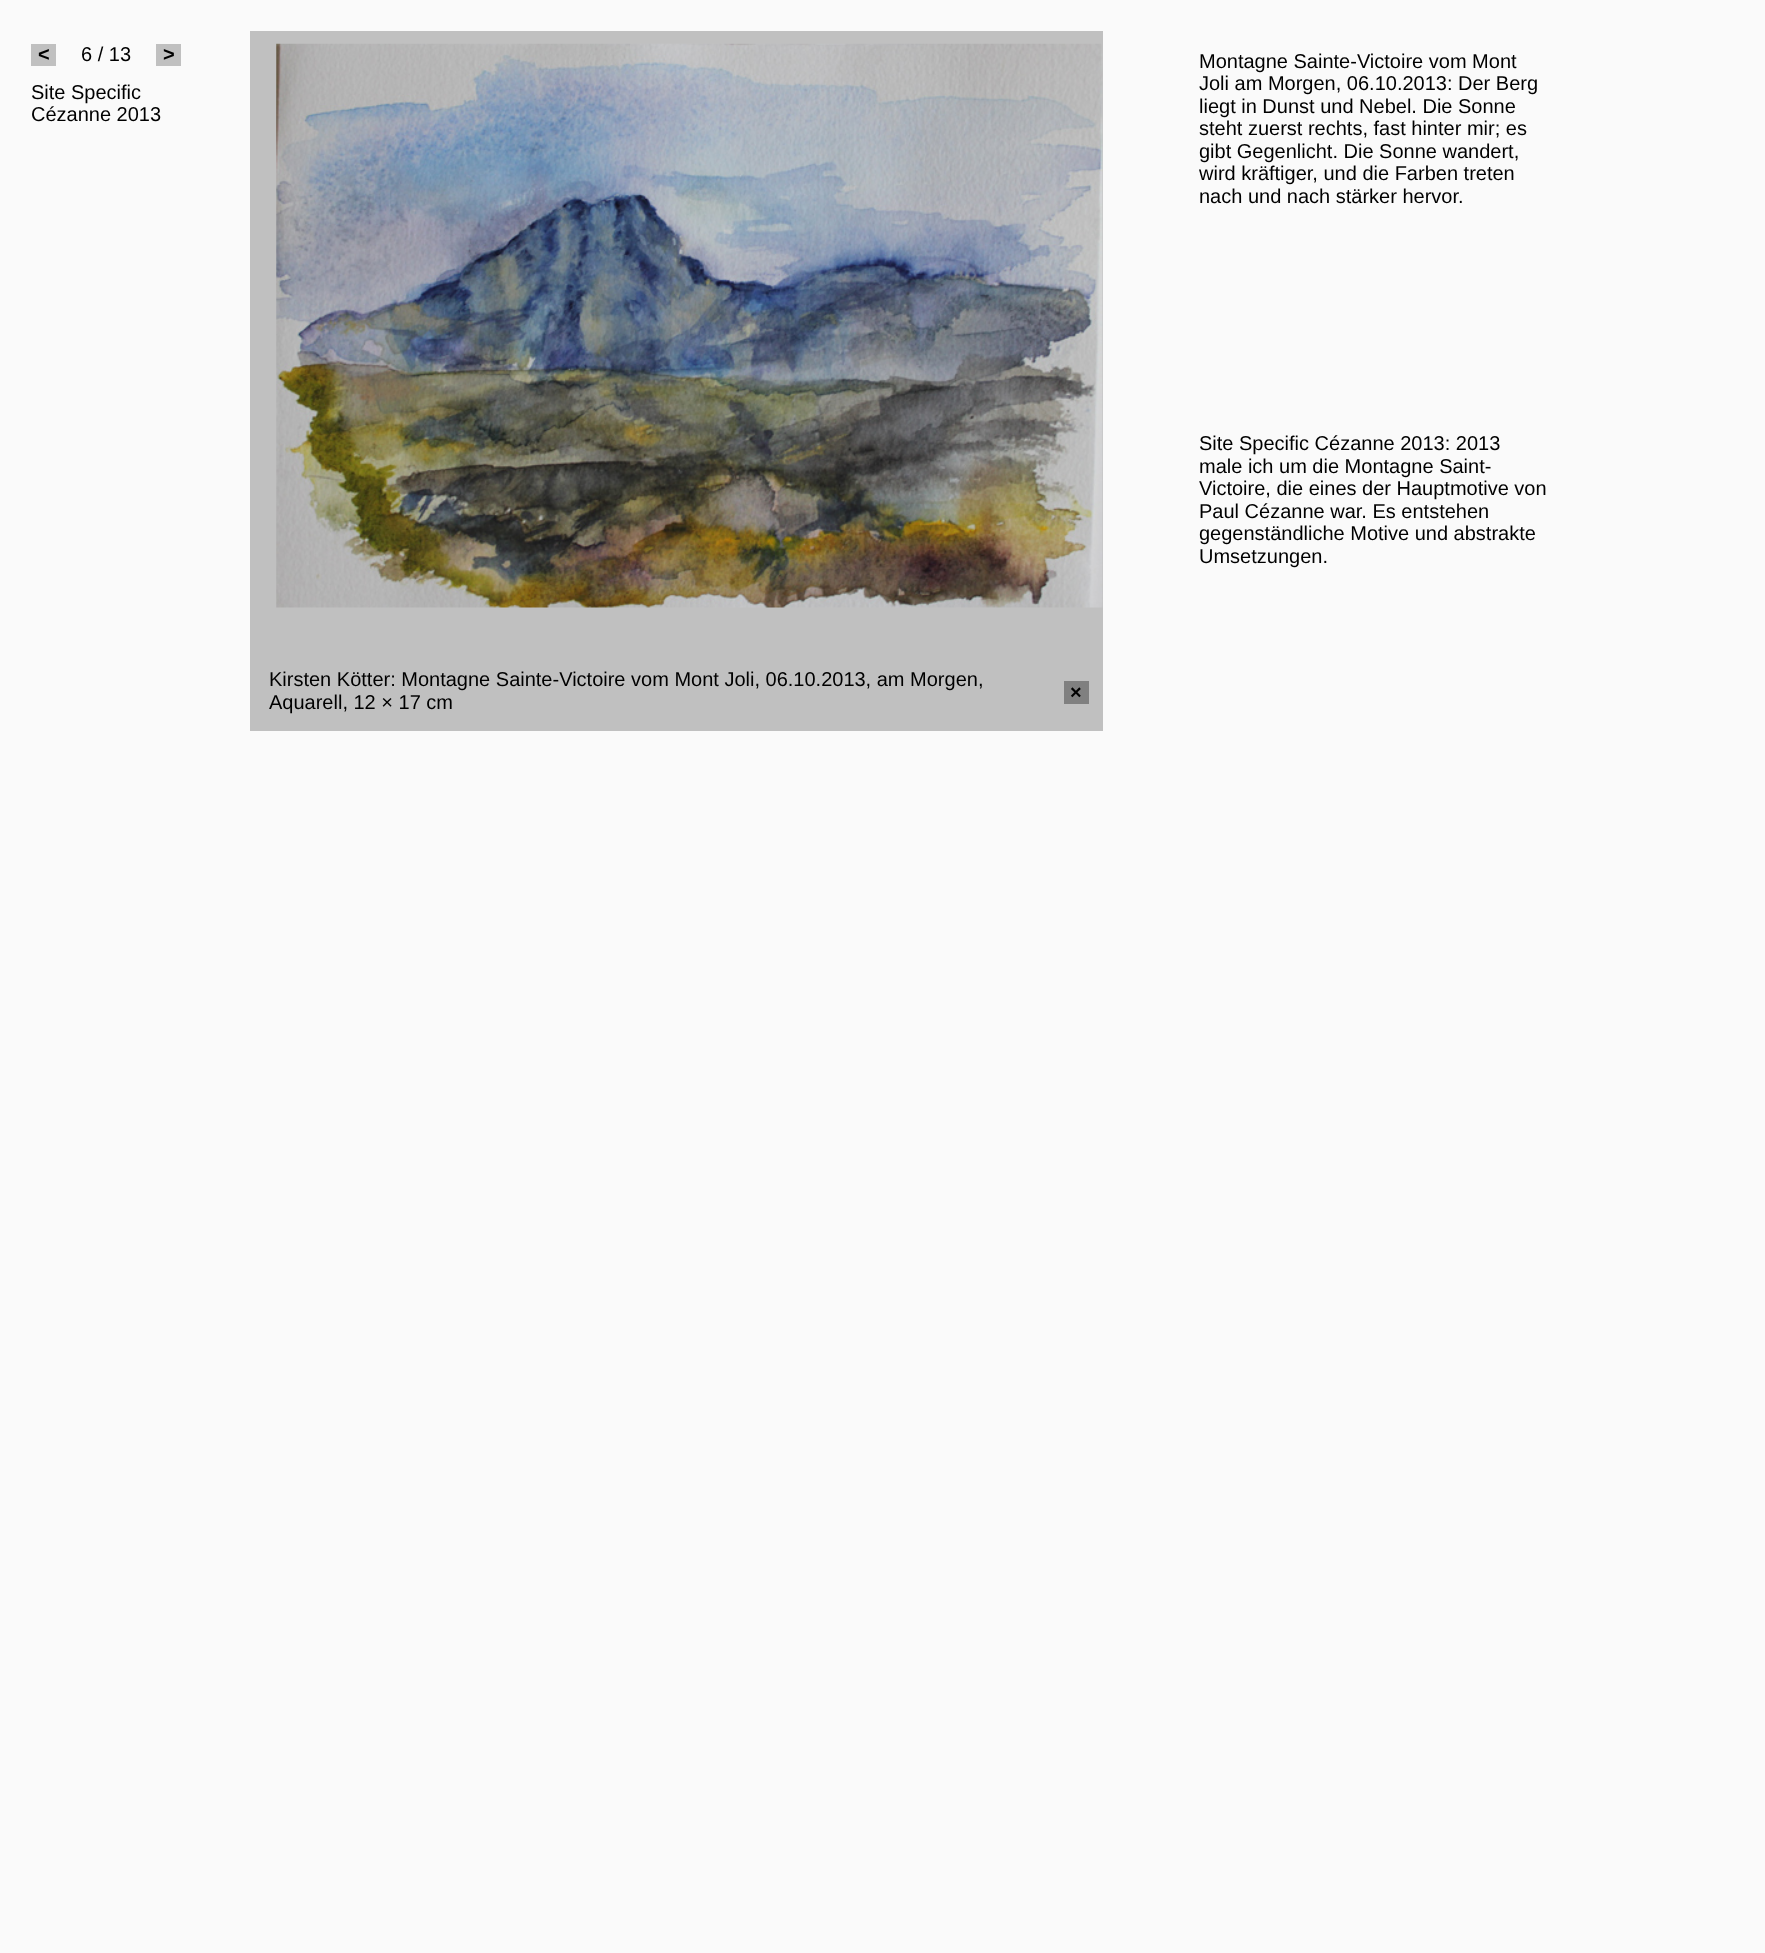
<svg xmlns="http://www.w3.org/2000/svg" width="1765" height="1953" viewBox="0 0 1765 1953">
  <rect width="100%" height="100%" fill="#fafafa"/>
  <rect x="250" y="31" width="853" height="700" fill="#c0c0c0"/>
  <rect x="31" y="44" width="25" height="22" fill="#c0c0c0"/>
  <text x="38" y="61" font-family="Liberation Sans" font-size="20" font-weight="bold" fill="#000000">&lt;</text>
  <text x="81" y="61" font-family="Liberation Sans" font-size="20" fill="#000000">6 / 13</text>
  <rect x="156" y="44" width="25" height="22" fill="#c0c0c0"/>
  <text x="163" y="61" font-family="Liberation Sans" font-size="20" font-weight="bold" fill="#000000">&gt;</text>
  <image x="276" y="43" width="827" height="565" href="img1.png"/>
  <text x="1199" y="68" font-family="Liberation Sans" font-size="20" fill="#000000">Montagne Sainte-Victoire vom Mont</text>
  <text x="1199" y="90" font-family="Liberation Sans" font-size="20" fill="#000000">Joli am Morgen, 06.10.2013: Der Berg</text>
  <text x="1199" y="113" font-family="Liberation Sans" font-size="20" fill="#000000">liegt in Dunst und Nebel. Die Sonne</text>
  <text x="1199" y="135" font-family="Liberation Sans" font-size="20" fill="#000000">steht zuerst rechts, fast hinter mir; es</text>
  <text x="1199" y="158" font-family="Liberation Sans" font-size="20" fill="#000000">gibt Gegenlicht. Die Sonne wandert,</text>
  <text x="1199" y="180" font-family="Liberation Sans" font-size="20" fill="#000000">wird kräftiger, und die Farben treten</text>
  <text x="1199" y="203" font-family="Liberation Sans" font-size="20" fill="#000000">nach und nach stärker hervor.</text>
  <text x="1199" y="450" font-family="Liberation Sans" font-size="20" fill="#000000">Site Specific Cézanne 2013: 2013</text>
  <text x="1199" y="473" font-family="Liberation Sans" font-size="20" fill="#000000">male ich um die Montagne Saint-</text>
  <text x="1199" y="495" font-family="Liberation Sans" font-size="20" fill="#000000">Victoire, die eines der Hauptmotive von</text>
  <text x="1199" y="518" font-family="Liberation Sans" font-size="20" fill="#000000">Paul Cézanne war. Es entstehen</text>
  <text x="1199" y="540" font-family="Liberation Sans" font-size="20" fill="#000000">gegenständliche Motive und abstrakte</text>
  <text x="1199" y="563" font-family="Liberation Sans" font-size="20" fill="#000000">Umsetzungen.</text>
  <text x="31" y="99" font-family="Liberation Sans" font-size="20" fill="#000000">Site Specific</text>
  <text x="31" y="121" font-family="Liberation Sans" font-size="20" fill="#000000">Cézanne 2013</text>
  <text x="269" y="686" font-family="Liberation Sans" font-size="20" fill="#000000">Kirsten Kötter: Montagne Sainte-Victoire vom Mont Joli, 06.10.2013, am Morgen,</text>
  <text x="269" y="709" font-family="Liberation Sans" font-size="20" fill="#000000">Aquarell, 12 × 17 cm</text>
  <rect x="1064" y="681" width="25" height="23" fill="#808080"/>
  <text x="1070" y="699" font-family="Liberation Sans" font-size="20" font-weight="bold" fill="#000000">×</text>
</svg>
